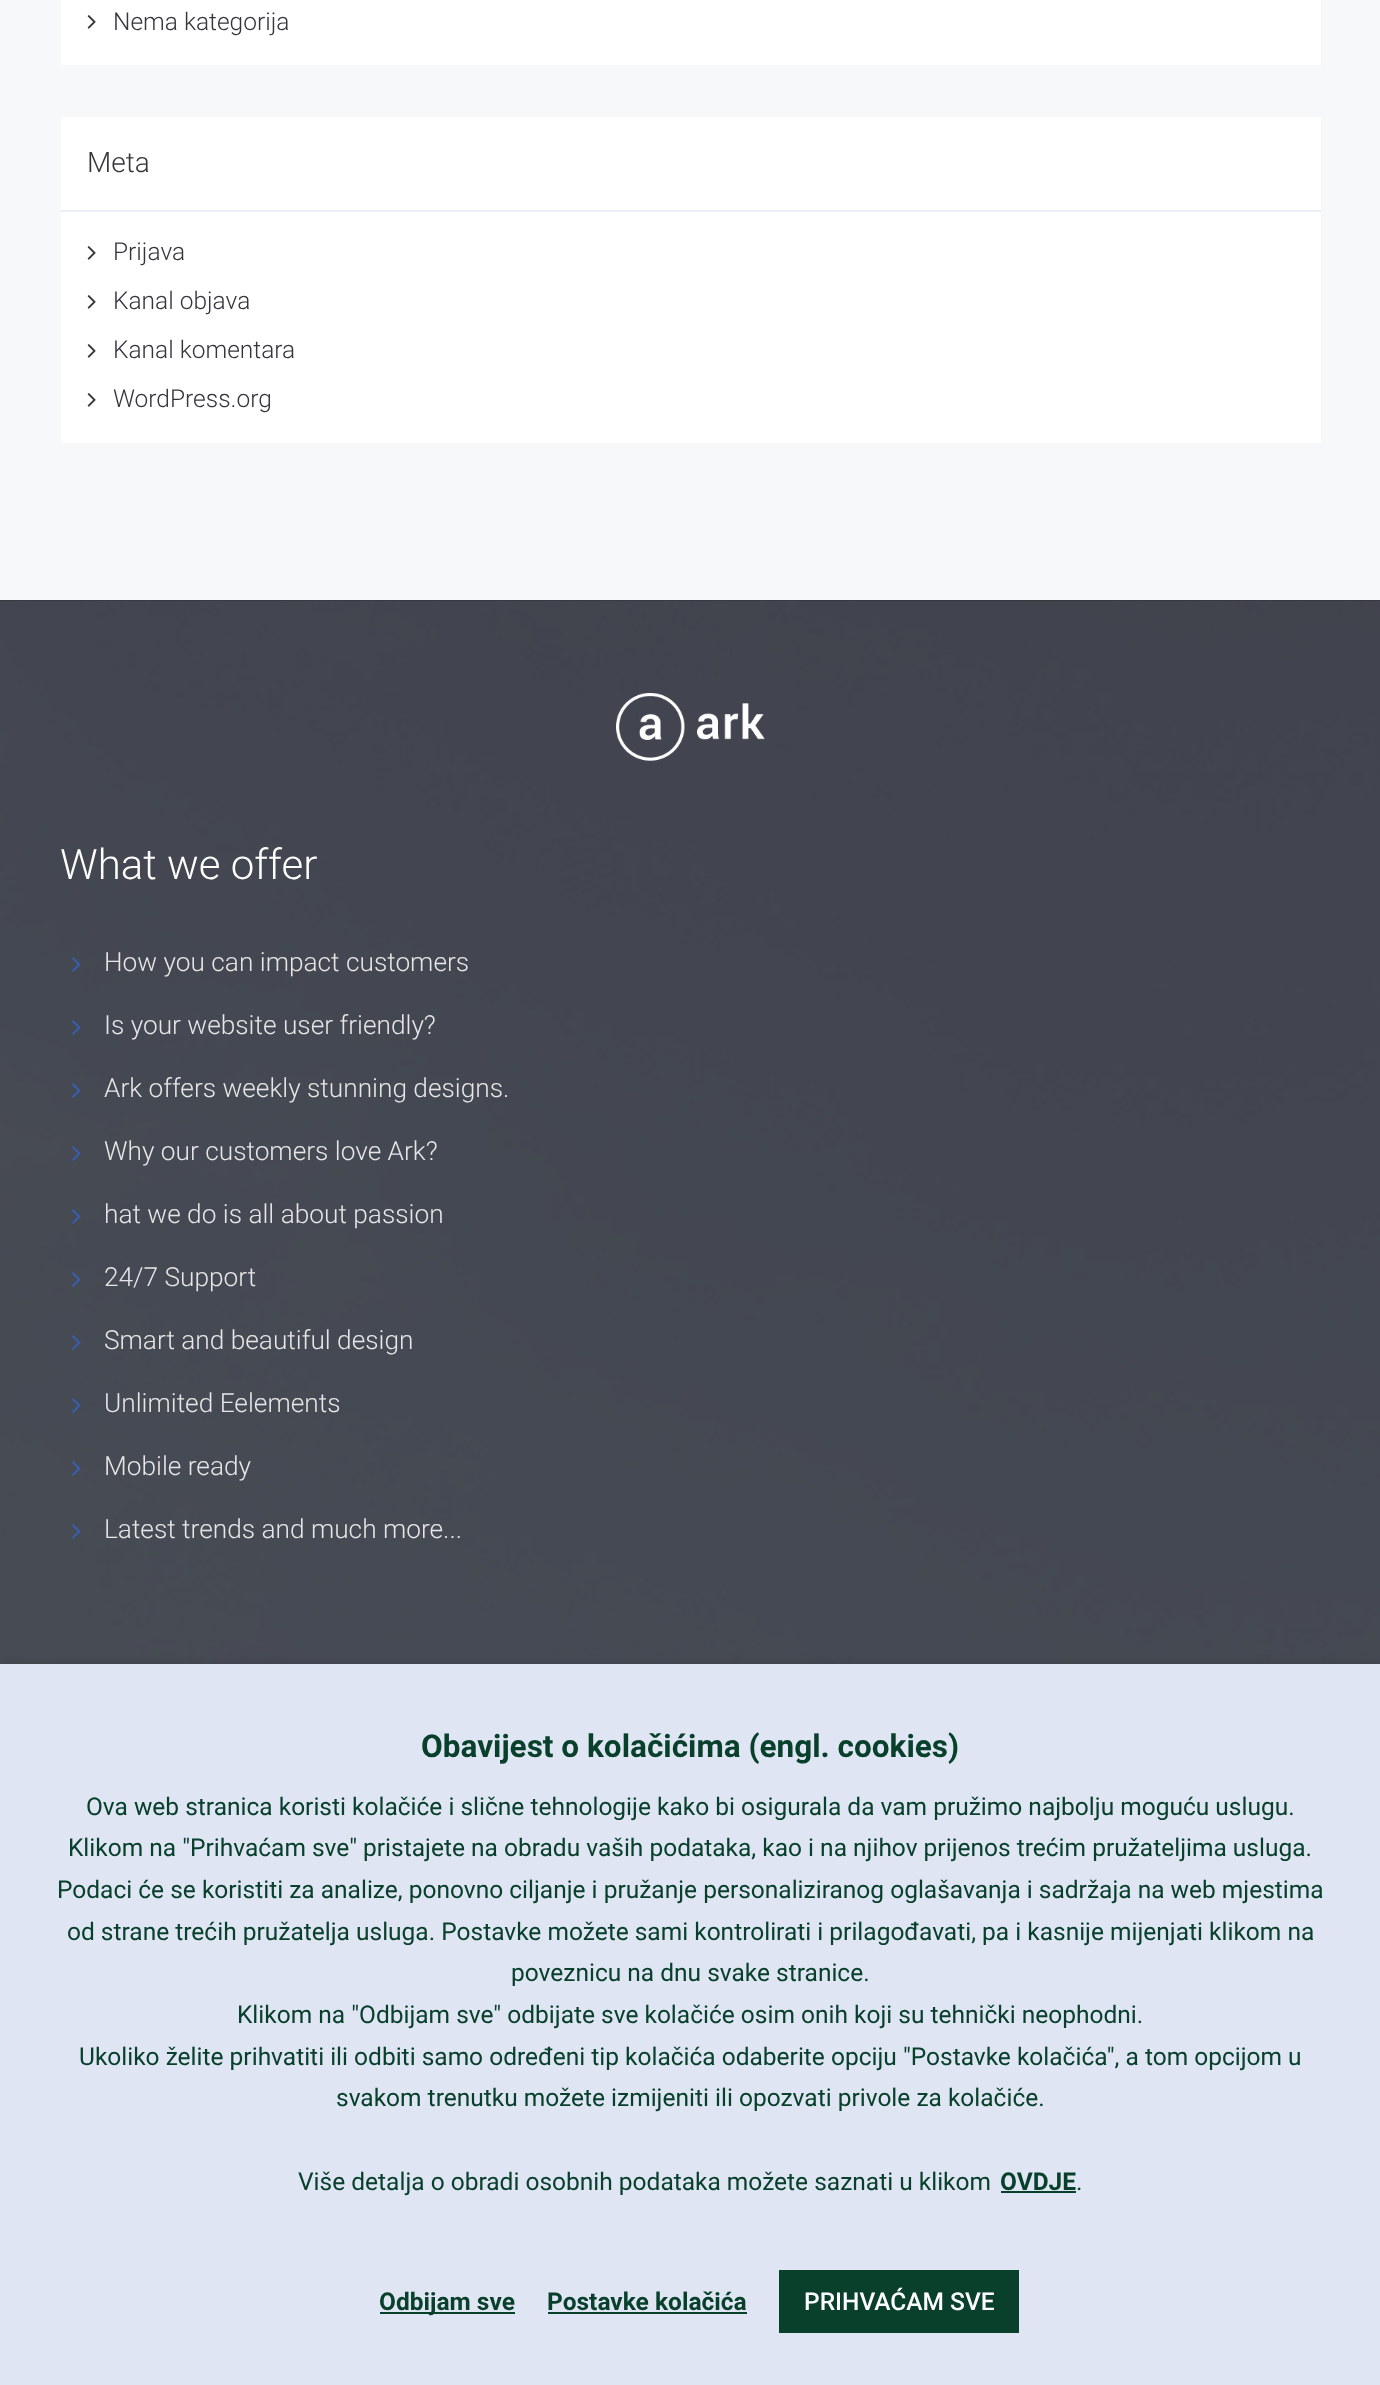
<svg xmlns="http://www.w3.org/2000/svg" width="1380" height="2385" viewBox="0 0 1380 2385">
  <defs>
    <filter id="blur1" x="-50%" y="-200%" width="200%" height="500%"><feGaussianBlur stdDeviation="9"/></filter>
  </defs>
  <rect width="100%" height="100%" fill="#f7f8fa"/>
  <rect x="61" y="0" width="1260" height="65" fill="#ffffff"/>
  <image x="87" y="15" width="9" height="14" href="img1.png"/>
  <text x="113" y="30" font-family="Roboto" font-size="24.5" font-weight="300" fill="#34343c">Nema kategorija</text>
  <rect x="61" y="117" width="1260" height="326" fill="#ffffff"/>
  <rect x="61" y="210" width="1260" height="2" fill="#ebeef6"/>
  <text x="87" y="172" font-family="Roboto" font-size="28" font-weight="300" fill="#34343c">Meta</text>
  <image x="87" y="246" width="9" height="14" href="img1.png"/>
  <text x="113" y="260" font-family="Roboto" font-size="24.5" font-weight="300" fill="#34343c">Prijava</text>
  <image x="87" y="295" width="9" height="14" href="img1.png"/>
  <text x="113" y="309" font-family="Roboto" font-size="24.5" font-weight="300" fill="#34343c">Kanal objava</text>
  <image x="87" y="344" width="9" height="14" href="img1.png"/>
  <text x="113" y="358" font-family="Roboto" font-size="24.5" font-weight="300" fill="#34343c">Kanal komentara</text>
  <image x="87" y="393" width="9" height="14" href="img1.png"/>
  <text x="113" y="407" font-family="Roboto" font-size="24.5" font-weight="300" fill="#34343c">WordPress.org</text>
  <rect x="0" y="600" width="1380" height="1" fill="#2c2c33"/>
  <image x="0" y="600" width="1380" height="1064" href="img2.png"/>
  <image x="616" y="693" width="149" height="68" href="img3.png"/>
  <text x="60" y="879" font-family="Roboto" font-size="42" font-weight="300" fill="#ffffff">What we offer</text>
  <image x="72" y="957" width="9" height="15" href="img4.png"/>
  <text x="104" y="971" font-family="Roboto" font-size="26.25" font-weight="300" fill="#e6e6e6">How you can impact customers</text>
  <image x="72" y="1020" width="9" height="15" href="img5.png"/>
  <text x="104" y="1034" font-family="Roboto" font-size="26.25" font-weight="300" fill="#e6e6e6">Is your website user friendly?</text>
  <image x="72" y="1083" width="9" height="15" href="img6.png"/>
  <text x="104" y="1097" font-family="Roboto" font-size="26.25" font-weight="300" fill="#e6e6e6">Ark offers weekly stunning designs.</text>
  <image x="72" y="1146" width="9" height="15" href="img7.png"/>
  <text x="104" y="1160" font-family="Roboto" font-size="26.25" font-weight="300" fill="#e6e6e6">Why our customers love Ark?</text>
  <image x="72" y="1209" width="9" height="15" href="img8.png"/>
  <text x="104" y="1223" font-family="Roboto" font-size="26.25" font-weight="300" fill="#e6e6e6">hat we do is all about passion</text>
  <image x="72" y="1272" width="9" height="15" href="img9.png"/>
  <text x="104" y="1286" font-family="Roboto" font-size="26.25" font-weight="300" fill="#e6e6e6">24/7 Support</text>
  <image x="72" y="1335" width="9" height="15" href="img10.png"/>
  <text x="104" y="1349" font-family="Roboto" font-size="26.25" font-weight="300" fill="#e6e6e6">Smart and beautiful design</text>
  <image x="72" y="1398" width="9" height="15" href="img11.png"/>
  <text x="104" y="1412" font-family="Roboto" font-size="26.25" font-weight="300" fill="#e6e6e6">Unlimited Eelements</text>
  <image x="72" y="1461" width="9" height="15" href="img12.png"/>
  <text x="104" y="1475" font-family="Roboto" font-size="26.25" font-weight="300" fill="#e6e6e6">Mobile ready</text>
  <image x="72" y="1524" width="9" height="15" href="img13.png"/>
  <text x="104" y="1538" font-family="Roboto" font-size="26.25" font-weight="300" fill="#e6e6e6">Latest trends and much more...</text>
  <rect x="0" y="1673" width="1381" height="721" fill="#000000" fill-opacity="0.5" filter="url(#blur1)"/>
  <rect x="0" y="1664" width="1380" height="721" fill="#dfe5f3"/>
  <text x="421" y="1757" font-family="Roboto" font-size="31.5" font-weight="bold" fill="#08402c">Obavijest o kolačićima (engl. cookies)</text>
  <text x="86" y="1815" font-family="Roboto" font-size="24.5" fill="#08402c">Ova web stranica koristi kolačiće i slične tehnologije kako bi osigurala da vam pružimo najbolju moguću uslugu.</text>
  <text x="68" y="1856" font-family="Roboto" font-size="24.5" fill="#08402c">Klikom na "Prihvaćam sve" pristajete na obradu vaših podataka, kao i na njihov prijenos trećim pružateljima usluga.</text>
  <text x="57" y="1898" font-family="Roboto" font-size="24.5" fill="#08402c">Podaci će se koristiti za analize, ponovno ciljanje i pružanje personaliziranog oglašavanja i sadržaja na web mjestima</text>
  <text x="67" y="1940" font-family="Roboto" font-size="24.5" fill="#08402c">od strane trećih pružatelja usluga. Postavke možete sami kontrolirati i prilagođavati, pa i kasnije mijenjati klikom na</text>
  <text x="511" y="1981" font-family="Roboto" font-size="24.5" fill="#08402c">poveznicu na dnu svake stranice.</text>
  <text x="237" y="2023" font-family="Roboto" font-size="24.5" fill="#08402c">Klikom na "Odbijam sve" odbijate sve kolačiće osim onih koji su tehnički neophodni.</text>
  <text x="79" y="2065" font-family="Roboto" font-size="24.5" fill="#08402c">Ukoliko želite prihvatiti ili odbiti samo određeni tip kolačića odaberite opciju "Postavke kolačića", a tom opcijom u</text>
  <text x="336" y="2106" font-family="Roboto" font-size="24.5" fill="#08402c">svakom trenutku možete izmijeniti ili opozvati privole za kolačiće.</text>
  <text x="298" y="2190" font-family="Roboto" font-size="24.5" fill="#08402c">Više detalja o obradi osobnih podataka možete saznati u klikom</text>
  <text x="1000" y="2190" font-family="Roboto" font-size="24.5" font-weight="bold" fill="#08402c">OVDJE</text>
  <rect x="1001" y="2191" width="75" height="2" fill="#08402c"/>
  <text x="1076" y="2190" font-family="Roboto" font-size="24.5" fill="#08402c">.</text>
  <rect x="380" y="2312" width="135" height="2" fill="#08402c"/>
  <text x="379" y="2310" font-family="Roboto" font-size="24.5" font-weight="bold" fill="#08402c">Odbijam sve</text>
  <text x="547" y="2310" font-family="Roboto" font-size="24.5" font-weight="bold" fill="#08402c">Postavke kolačića</text>
  <rect x="548" y="2312" width="199" height="2" fill="#08402c"/>
  <rect x="779" y="2270" width="240" height="63" fill="#08402c"/>
  <text x="804" y="2310" font-family="Roboto" font-size="24.5" font-weight="500" fill="#ffffff">PRIHVAĆAM SVE</text>
</svg>
